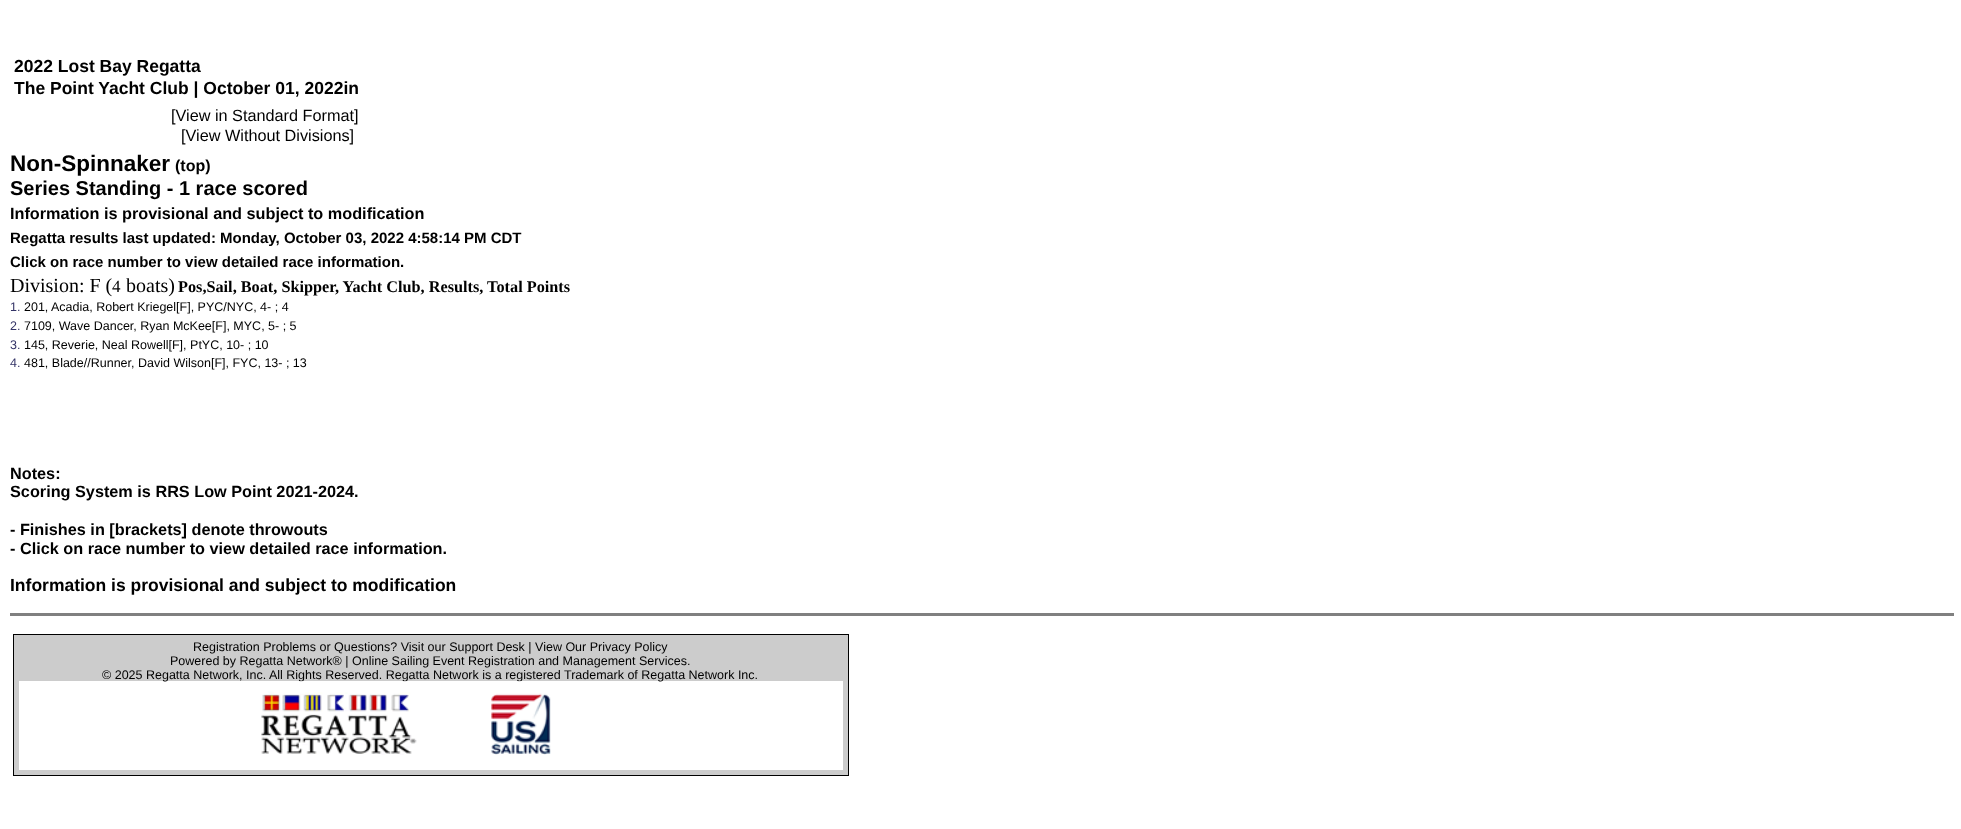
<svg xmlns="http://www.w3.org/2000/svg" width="1961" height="829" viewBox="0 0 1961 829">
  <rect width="100%" height="100%" fill="#ffffff"/>
  <text x="14" y="72" font-family="Liberation Sans" font-size="17.5" font-weight="bold" fill="#000000">2022 Lost Bay Regatta</text>
  <text x="14" y="94" font-family="Liberation Sans" font-size="17.5" font-weight="bold" fill="#000000">The Point Yacht Club | October 01, 2022in</text>
  <text x="171" y="121" font-family="Liberation Sans" font-size="16.25" fill="#000000">[View in Standard Format]</text>
  <text x="181" y="141" font-family="Liberation Sans" font-size="16.25" fill="#000000">[View Without Divisions]</text>
  <text x="10" y="171" font-family="Liberation Sans" font-size="22.5" font-weight="bold" fill="#000000">Non-Spinnaker</text>
  <text x="175" y="171" font-family="Liberation Sans" font-size="16" font-weight="bold" fill="#000000">(top)</text>
  <text x="10" y="195" font-family="Liberation Sans" font-size="20" font-weight="bold" fill="#000000">Series Standing - 1 race scored</text>
  <text x="10" y="219" font-family="Liberation Sans" font-size="16.25" font-weight="bold" fill="#000000">Information is provisional and subject to modification</text>
  <text x="10" y="243" font-family="Liberation Sans" font-size="15" font-weight="bold" fill="#000000">Regatta results last updated: Monday, October 03, 2022 4:58:14 PM CDT</text>
  <text x="10" y="267" font-family="Liberation Sans" font-size="15" font-weight="bold" fill="#000000">Click on race number to view detailed race information.</text>
  <text x="10" y="292" font-family="Liberation Serif" font-size="20" fill="#000000">Division: F (</text>
  <text x="112" y="292" font-family="Liberation Serif" font-size="17" fill="#000000">4</text>
  <text x="126" y="292" font-family="Liberation Serif" font-size="20" fill="#000000">boats)</text>
  <text x="178" y="292" font-family="Liberation Serif" font-size="16.25" font-weight="bold" fill="#000000">Pos,Sail, Boat, Skipper, Yacht Club, Results, Total Points</text>
  <text x="10" y="311" font-family="Liberation Sans" font-size="12.5" fill="#333366">1.</text>
  <text x="24" y="311" font-family="Liberation Sans" font-size="12.5" fill="#000000">201,</text>
  <text x="51" y="311" font-family="Liberation Sans" font-size="12.5" fill="#000000">Acadia, Robert Kriegel[F], PYC/NYC, 4- ; 4</text>
  <text x="10" y="330" font-family="Liberation Sans" font-size="12.5" fill="#333366">2.</text>
  <text x="24" y="330" font-family="Liberation Sans" font-size="12.5" fill="#000000">7109, Wave Dancer, Ryan McKee[F], MYC, 5- ; 5</text>
  <text x="10" y="349" font-family="Liberation Sans" font-size="12.5" fill="#333366">3.</text>
  <text x="24" y="349" font-family="Liberation Sans" font-size="12.5" fill="#000000">145, Reverie, Neal Rowell[F], PtYC, 10- ; 10</text>
  <text x="10" y="367" font-family="Liberation Sans" font-size="12.5" fill="#333366">4.</text>
  <text x="24" y="367" font-family="Liberation Sans" font-size="12.5" fill="#000000">481, Blade//Runner, David Wilson[F], FYC, 13- ; 13</text>
  <text x="10" y="479" font-family="Liberation Sans" font-size="16.25" font-weight="bold" fill="#000000">Notes:</text>
  <text x="10" y="497" font-family="Liberation Sans" font-size="16.25" font-weight="bold" fill="#000000">Scoring System is RRS Low Point 2021-2024.</text>
  <text x="10" y="535" font-family="Liberation Sans" font-size="16.25" font-weight="bold" fill="#000000">- Finishes in [brackets] denote throwouts</text>
  <text x="10" y="554" font-family="Liberation Sans" font-size="16.25" font-weight="bold" fill="#000000">- Click on race number to view detailed race information.</text>
  <text x="10" y="591" font-family="Liberation Sans" font-size="17.5" font-weight="bold" fill="#000000">Information is provisional and subject to modification</text>
  <rect x="10" y="613" width="1944" height="3" fill="#808080"/>
  <rect x="13.5" y="634.5" width="835" height="141" fill="#cccccc" stroke="#000000"/>
  <text x="193" y="651" font-family="Liberation Sans" font-size="12.5" fill="#000000">Registration Problems or Questions? Visit our Support Desk | View Our Privacy Policy</text>
  <text x="170" y="665" font-family="Liberation Sans" font-size="12.5" fill="#000000">Powered by Regatta Network® | Online Sailing Event Registration and Management Services.</text>
  <rect x="19" y="681" width="824" height="89" fill="#ffffff"/>
  <text x="102" y="679" font-family="Liberation Sans" font-size="12.5" fill="#000000">© 2025 Regatta Network, Inc. All Rights Reserved. Regatta Network is a registered Trademark of Regatta Network Inc.</text>
  <image x="261" y="681" width="156" height="74" href="img1.png"/>
  <image x="491" y="681" width="60" height="74" href="img2.png"/>
</svg>
